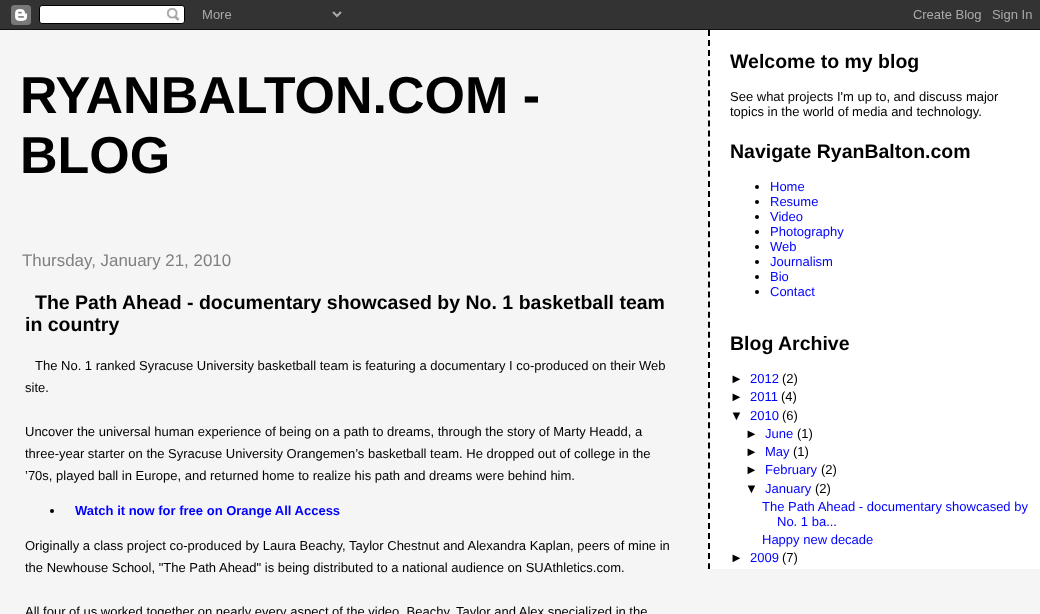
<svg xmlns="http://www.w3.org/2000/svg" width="1040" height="614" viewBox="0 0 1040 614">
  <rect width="100%" height="100%" fill="#f5f5f5"/>
  <image x="0" y="0" width="1040" height="30" href="img1.png"/>
  <text x="20" y="113" font-family="Liberation Sans" font-size="52" font-weight="bold" fill="#000000">RYANBALTON.COM -</text>
  <text x="20" y="173" font-family="Liberation Sans" font-size="52" font-weight="bold" fill="#000000">BLOG</text>
  <text x="22" y="266" font-family="Liberation Sans" font-size="16.9" fill="#808080">Thursday, January 21, 2010</text>
  <text x="35" y="309" font-family="Liberation Sans" font-size="19.5" font-weight="bold" fill="#000000">The Path Ahead - documentary showcased by No. 1 basketball team</text>
  <text x="25" y="331" font-family="Liberation Sans" font-size="19.5" font-weight="bold" fill="#000000">in country</text>
  <text x="35" y="370" font-family="Liberation Sans" font-size="13" fill="#000000">The No. 1 ranked Syracuse University basketball team is featuring a documentary I co-produced on their Web</text>
  <text x="25" y="392" font-family="Liberation Sans" font-size="13" fill="#000000">site.</text>
  <text x="25" y="436" font-family="Liberation Sans" font-size="13" fill="#000000">Uncover the universal human experience of being on a path to dreams, through the story of Marty Headd, a</text>
  <text x="25" y="458" font-family="Liberation Sans" font-size="13" fill="#000000">three-year starter on the Syracuse University Orangemen’s basketball team. He dropped out of college in the</text>
  <text x="25" y="480" font-family="Liberation Sans" font-size="13" fill="#000000">’70s, played ball in Europe, and returned home to realize his path and dreams were behind him.</text>
  <circle cx="52" cy="511" r="2" fill="#000000"/>
  <text x="75" y="515" font-family="Liberation Sans" font-size="13" font-weight="bold" fill="#0000ff">Watch it now for free on Orange All Access</text>
  <text x="25" y="550" font-family="Liberation Sans" font-size="13" fill="#000000">Originally a class project co-produced by Laura Beachy, Taylor Chestnut and Alexandra Kaplan, peers of mine in</text>
  <text x="25" y="572" font-family="Liberation Sans" font-size="13" fill="#000000">the Newhouse School, "The Path Ahead" is being distributed to a national audience on SUAthletics.com.</text>
  <text x="25" y="616" font-family="Liberation Sans" font-size="13" fill="#000000">All four of us worked together on nearly every aspect of the video. Beachy, Taylor and Alex specialized in the</text>
  <rect x="708" y="30" width="332" height="539" fill="#ffffff"/>
  <path d="M709 30V569" fill="none" stroke="#000000" stroke-width="2" stroke-dasharray="6 4.06"/>
  <text x="730" y="68" font-family="Liberation Sans" font-size="19.5" font-weight="bold" fill="#000000">Welcome to my blog</text>
  <text x="730" y="101" font-family="Liberation Sans" font-size="13" fill="#000000">See what projects I'm up to, and discuss major</text>
  <text x="730" y="116" font-family="Liberation Sans" font-size="13" fill="#000000">topics in the world of media and technology.</text>
  <text x="730" y="158" font-family="Liberation Sans" font-size="19.5" font-weight="bold" fill="#000000">Navigate RyanBalton.com</text>
  <circle cx="757" cy="187" r="2" fill="#000000"/>
  <text x="770" y="191" font-family="Liberation Sans" font-size="13" fill="#0000ff">Home</text>
  <circle cx="757" cy="202" r="2" fill="#000000"/>
  <text x="770" y="206" font-family="Liberation Sans" font-size="13" fill="#0000ff">Resume</text>
  <circle cx="757" cy="217" r="2" fill="#000000"/>
  <text x="770" y="221" font-family="Liberation Sans" font-size="13" fill="#0000ff">Video</text>
  <circle cx="757" cy="232" r="2" fill="#000000"/>
  <text x="770" y="236" font-family="Liberation Sans" font-size="13" fill="#0000ff">Photography</text>
  <circle cx="757" cy="247" r="2" fill="#000000"/>
  <text x="770" y="251" font-family="Liberation Sans" font-size="13" fill="#0000ff">Web</text>
  <circle cx="757" cy="262" r="2" fill="#000000"/>
  <text x="770" y="266" font-family="Liberation Sans" font-size="13" fill="#0000ff">Journalism</text>
  <circle cx="757" cy="277" r="2" fill="#000000"/>
  <text x="770" y="281" font-family="Liberation Sans" font-size="13" fill="#0000ff">Bio</text>
  <circle cx="757" cy="292" r="2" fill="#000000"/>
  <text x="770" y="296" font-family="Liberation Sans" font-size="13" fill="#0000ff">Contact</text>
  <text x="730" y="350" font-family="Liberation Sans" font-size="19.5" font-weight="bold" fill="#000000">Blog Archive</text>
  <text x="730" y="383" font-family="Liberation Sans" font-size="13" fill="#000000">►</text>
  <text x="750" y="383" font-family="Liberation Sans" font-size="13" fill="#0000ff">2012</text>
  <text x="782" y="383" font-family="Liberation Sans" font-size="13" fill="#000000">(2)</text>
  <text x="730" y="401" font-family="Liberation Sans" font-size="13" fill="#000000">►</text>
  <text x="750" y="401" font-family="Liberation Sans" font-size="13" fill="#0000ff">2011</text>
  <text x="781" y="401" font-family="Liberation Sans" font-size="13" fill="#000000">(4)</text>
  <text x="730" y="420" font-family="Liberation Sans" font-size="13" fill="#000000">▼</text>
  <text x="750" y="420" font-family="Liberation Sans" font-size="13" fill="#0000ff">2010</text>
  <text x="782" y="420" font-family="Liberation Sans" font-size="13" fill="#000000">(6)</text>
  <text x="745" y="438" font-family="Liberation Sans" font-size="13" fill="#000000">►</text>
  <text x="765" y="438" font-family="Liberation Sans" font-size="13" fill="#0000ff">June</text>
  <text x="797" y="438" font-family="Liberation Sans" font-size="13" fill="#000000">(1)</text>
  <text x="745" y="456" font-family="Liberation Sans" font-size="13" fill="#000000">►</text>
  <text x="765" y="456" font-family="Liberation Sans" font-size="13" fill="#0000ff">May</text>
  <text x="793" y="456" font-family="Liberation Sans" font-size="13" fill="#000000">(1)</text>
  <text x="745" y="474" font-family="Liberation Sans" font-size="13" fill="#000000">►</text>
  <text x="765" y="474" font-family="Liberation Sans" font-size="13" fill="#0000ff">February</text>
  <text x="821" y="474" font-family="Liberation Sans" font-size="13" fill="#000000">(2)</text>
  <text x="745" y="493" font-family="Liberation Sans" font-size="13" fill="#000000">▼</text>
  <text x="765" y="493" font-family="Liberation Sans" font-size="13" fill="#0000ff">January</text>
  <text x="815" y="493" font-family="Liberation Sans" font-size="13" fill="#000000">(2)</text>
  <text x="762" y="511" font-family="Liberation Sans" font-size="13" fill="#0000ff">The Path Ahead - documentary showcased by</text>
  <text x="777" y="526" font-family="Liberation Sans" font-size="13" fill="#0000ff">No. 1 ba...</text>
  <text x="762" y="544" font-family="Liberation Sans" font-size="13" fill="#0000ff">Happy new decade</text>
  <text x="730" y="562" font-family="Liberation Sans" font-size="13" fill="#000000">►</text>
  <text x="750" y="562" font-family="Liberation Sans" font-size="13" fill="#0000ff">2009</text>
  <text x="782" y="562" font-family="Liberation Sans" font-size="13" fill="#000000">(7)</text>
</svg>
